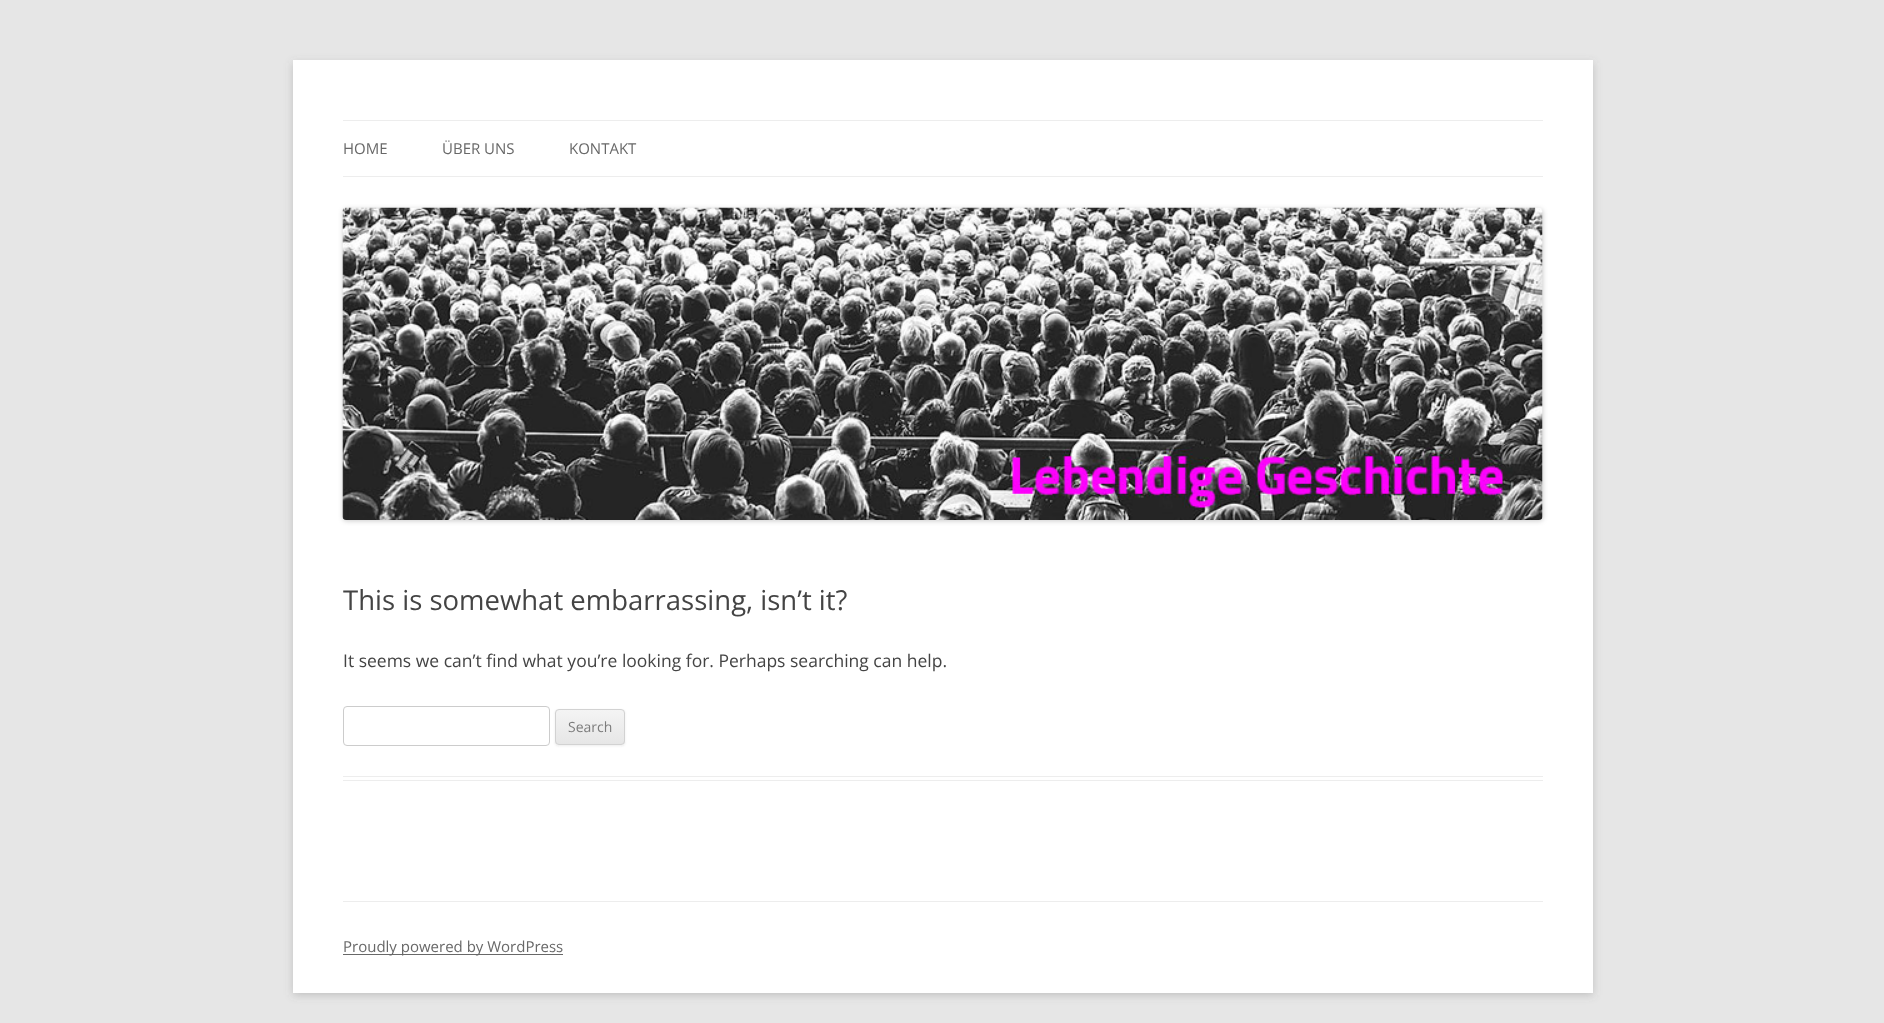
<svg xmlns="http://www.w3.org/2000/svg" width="1884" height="1023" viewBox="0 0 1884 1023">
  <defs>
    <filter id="blur1" x="-50%" y="-200%" width="200%" height="500%"><feGaussianBlur stdDeviation="4"/></filter>
    <filter id="blur2" x="-50%" y="-200%" width="200%" height="500%"><feGaussianBlur stdDeviation="2.5"/></filter>
    <filter id="blur3" x="-50%" y="-200%" width="200%" height="500%"><feGaussianBlur stdDeviation="1"/></filter>
    <clipPath id="clip1"><rect x="555" y="709" width="70" height="36" rx="4"/></clipPath>
    <linearGradient id="g1" gradientUnits="userSpaceOnUse" x1="590" y1="710" x2="590" y2="744"><stop offset="0" stop-color="#f4f4f4"/><stop offset="1" stop-color="#e6e6e6"/></linearGradient>
  </defs>
  <rect width="100%" height="100%" fill="#e6e6e6"/>
  <rect x="293" y="63" width="1300" height="932" fill="#646464" fill-opacity="0.3" filter="url(#blur1)"/>
  <rect x="293" y="60" width="1300" height="933" fill="#ffffff"/>
  <rect x="343" y="120" width="1200" height="1" fill="#ededed"/>
  <rect x="343" y="176" width="1200" height="1" fill="#ededed"/>
  <text x="343" y="154" font-family="Open Sans" font-size="15" fill="#686868">HOME</text>
  <text x="442" y="154" font-family="Open Sans" font-size="15" fill="#686868">ÜBER UNS</text>
  <text x="569" y="154" font-family="Open Sans" font-size="15" fill="#686868">KONTAKT</text>
  <rect x="343" y="209" width="1200" height="312" rx="4" fill="#000000" fill-opacity="0.2" filter="url(#blur2)"/>
  <image x="342" y="207" width="1201" height="313" href="img1.png"/>
  <rect x="343" y="776" width="1200" height="1" fill="#ededed"/>
  <rect x="343" y="780" width="1200" height="1" fill="#ededed"/>
  <text x="343" y="610" font-family="Open Sans" font-size="27.5" fill="#444444">This is somewhat embarrassing, isn’t it?</text>
  <text x="343" y="667" font-family="Open Sans" font-size="17.5" fill="#444444">It seems we can’t find what you’re looking for. Perhaps searching can help.</text>
  <rect x="343.5" y="706.5" width="206" height="39" rx="3.5" fill="none" stroke="#cccccc"/>
  <rect x="555" y="710" width="70" height="36" rx="4" fill="#404040" fill-opacity="0.1" filter="url(#blur3)"/>
  <g clip-path="url(#clip1)">
    <rect x="555" y="710" width="70" height="34" fill="url(#g1)"/>
  </g>
  <rect x="555.5" y="709.5" width="69" height="35" rx="3.5" fill="none" stroke="#d2d2d2"/>
  <text x="568" y="732" font-family="Open Sans" font-size="14" fill="#7c7c7c">Search</text>
  <rect x="343" y="901" width="1200" height="1" fill="#ededed"/>
  <rect x="343" y="954" width="220" height="1" fill="#686868"/>
  <text x="343" y="952" font-family="Open Sans" font-size="15" fill="#686868">Proudly powered by WordPress</text>
</svg>
